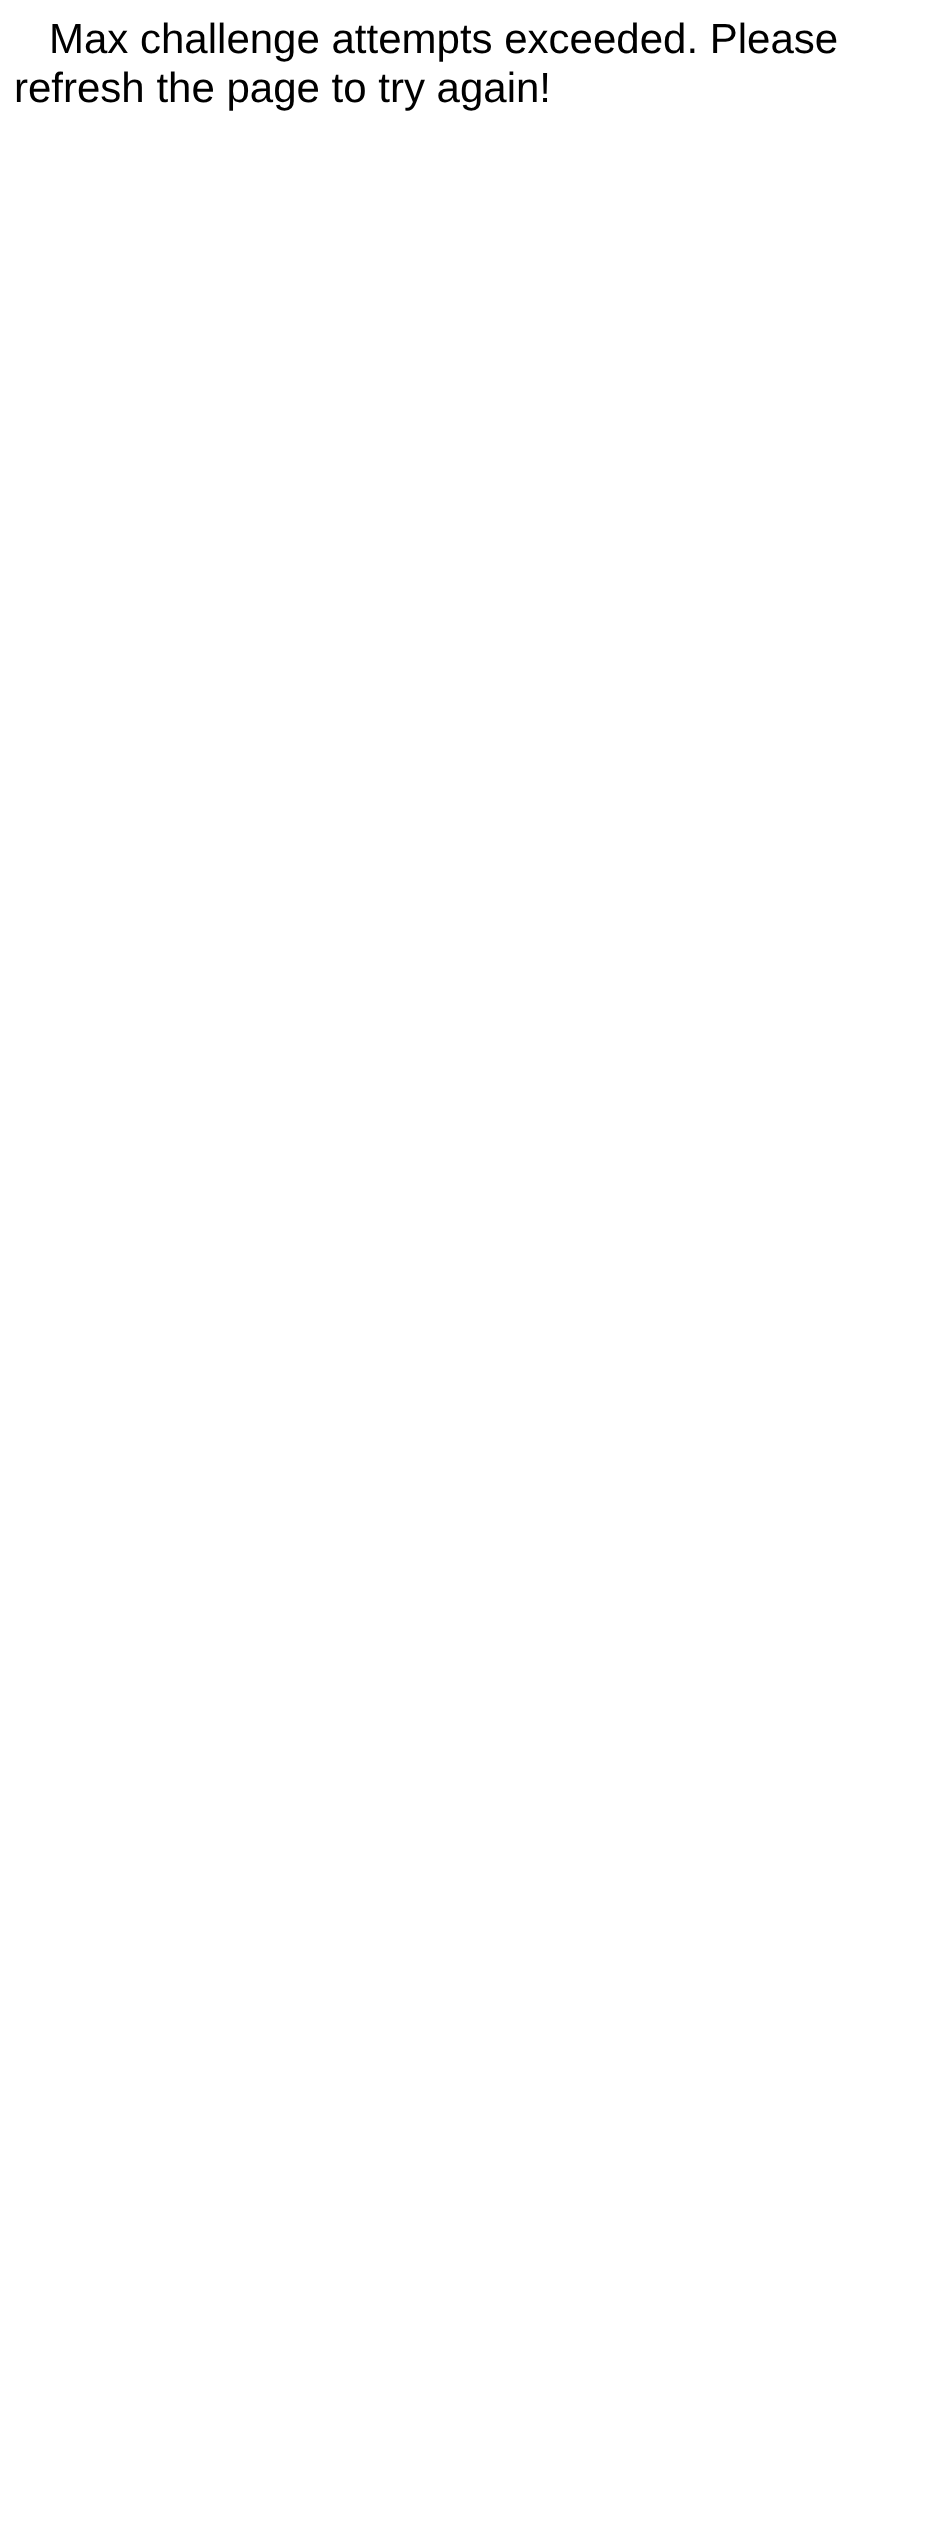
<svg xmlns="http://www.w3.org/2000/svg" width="950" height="2529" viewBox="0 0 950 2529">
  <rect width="100%" height="100%" fill="#ffffff"/>
  <text x="49" y="53" font-family="Liberation Sans" font-size="42" fill="#000000">Max challenge attempts exceeded. Please</text>
  <text x="14" y="102" font-family="Liberation Sans" font-size="42" fill="#000000">refresh the page to try again!</text>
</svg>
